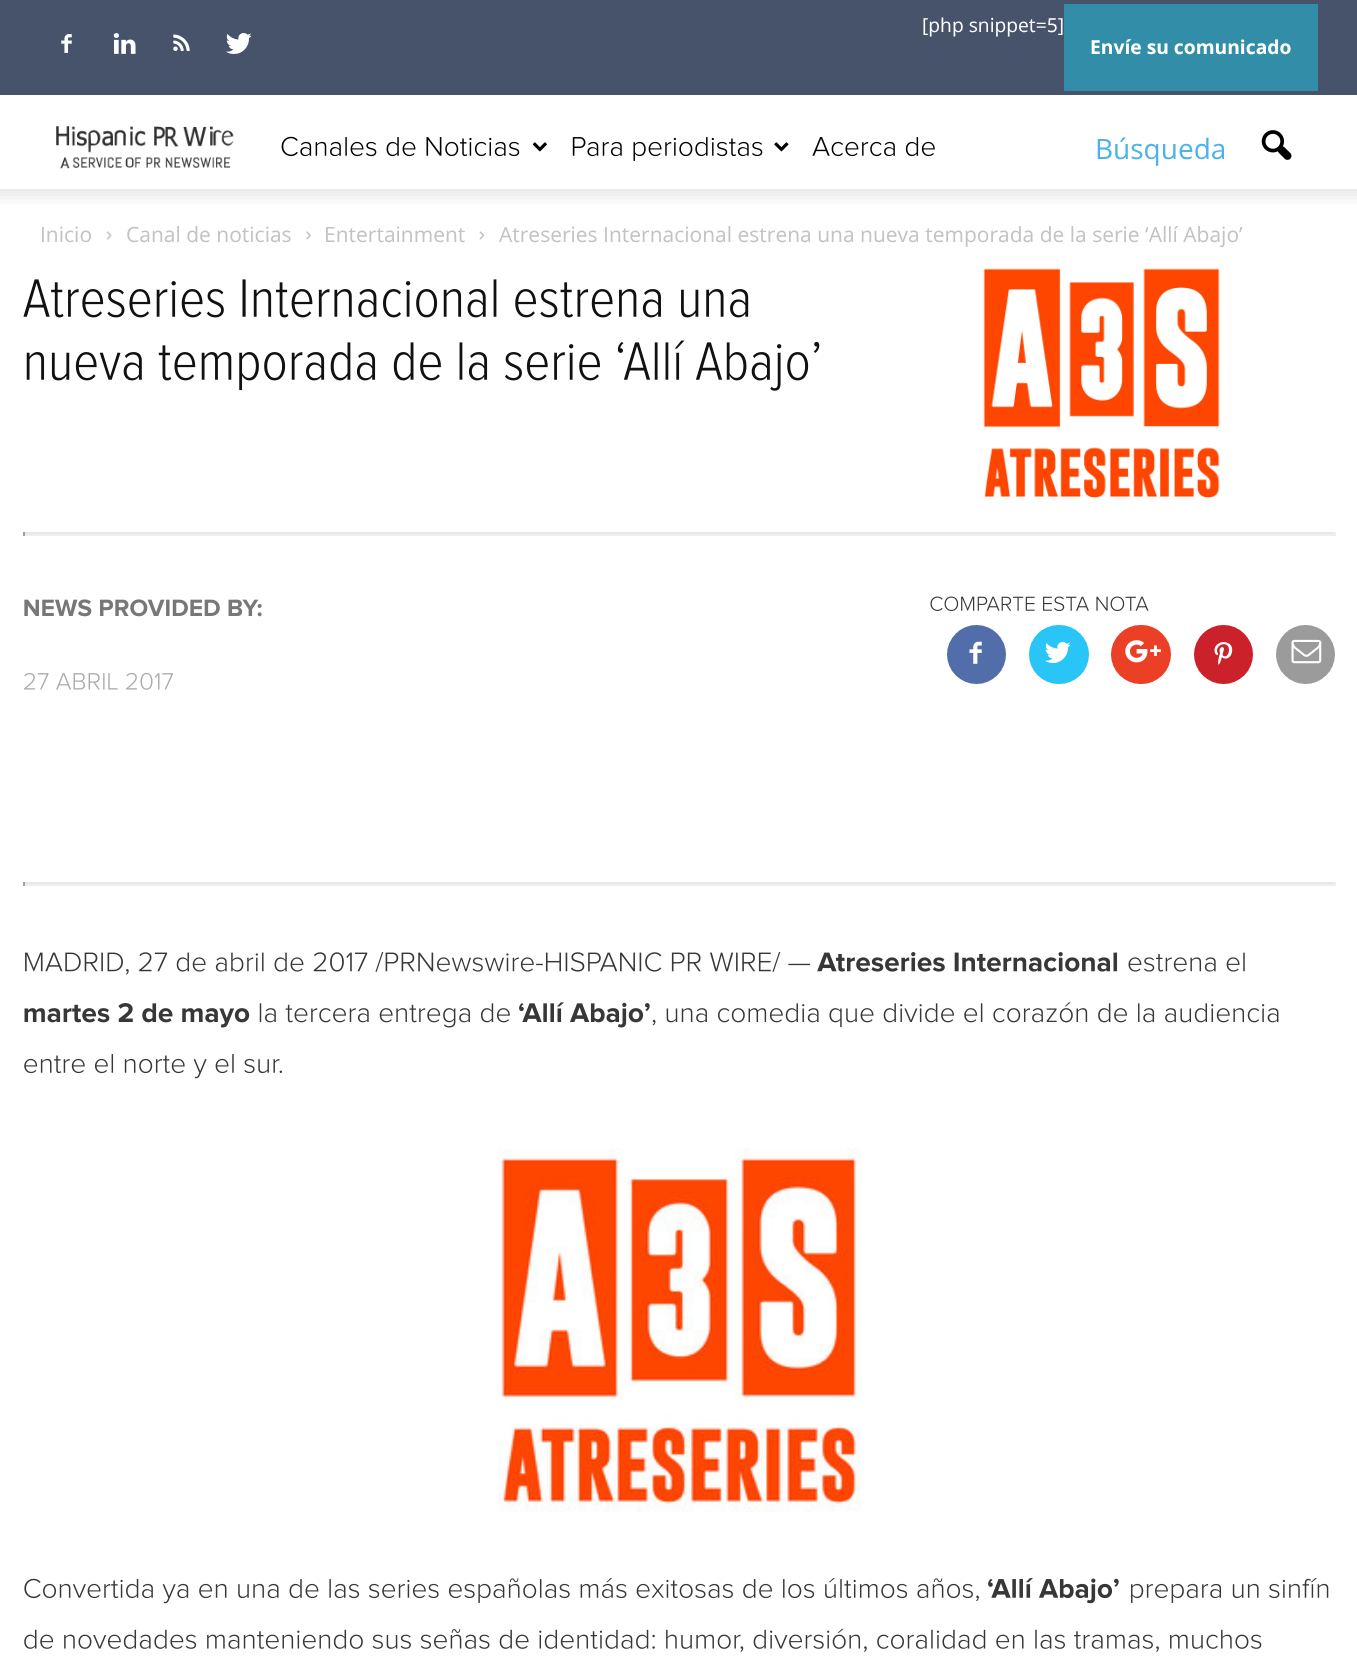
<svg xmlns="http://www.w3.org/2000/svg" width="1357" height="1672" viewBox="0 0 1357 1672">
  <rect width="100%" height="100%" fill="#ffffff"/>
  <rect x="0" y="0" width="1357" height="95" fill="#47536b"/>
  <image x="61" y="34" width="11" height="19" href="img1.png"/>
  <image x="113" y="33" width="23" height="21" href="img2.png"/>
  <image x="173" y="34" width="17" height="17" href="img3.png"/>
  <image x="226" y="33" width="26" height="21" href="img4.png"/>
  <text x="922" y="32" font-family="Open Sans" font-size="19.25" fill="#ffffff">[php snippet=5]</text>
  <rect x="1064" y="4" width="254" height="87" fill="#318da8"/>
  <text x="1090" y="54" font-family="Open Sans" font-size="19.25" font-weight="bold" fill="#ffffff">Envíe su comunicado</text>
  <image x="56" y="126" width="178" height="43" href="img5.png"/>
  <image x="281" y="136" width="239" height="21" href="img6.png"/>
  <image x="532" y="142" width="15" height="10" href="img7.png"/>
  <image x="572" y="137" width="191" height="24" href="img8.png"/>
  <image x="774" y="142" width="15" height="10" href="img9.png"/>
  <image x="812" y="137" width="123" height="20" href="img10.png"/>
  <text x="1095" y="159" font-family="Open Sans" font-size="28" fill="#4db2ec">Búsqueda</text>
  <image x="1261" y="130" width="31" height="30" href="img11.png"/>
  <image x="0" y="189" width="1357" height="15" href="img12.png"/>
  <text x="40" y="242" font-family="Open Sans" font-size="21" fill="#c3c3c3">Inicio</text>
  <image x="106" y="231" width="6" height="9" href="img13.png"/>
  <text x="126" y="242" font-family="Open Sans" font-size="21" fill="#c3c3c3">Canal de noticias</text>
  <image x="306" y="231" width="5" height="9" href="img14.png"/>
  <text x="324" y="242" font-family="Open Sans" font-size="21" fill="#c3c3c3">Entertainment</text>
  <image x="479" y="231" width="6" height="9" href="img15.png"/>
  <text x="499" y="242" font-family="Open Sans" font-size="21" fill="#c3c3c3">Atreseries Internacional estrena una nueva temporada de la serie ‘Allí Abajo’</text>
  <image x="23" y="279" width="726" height="39" href="img16.png"/>
  <image x="26" y="340" width="794" height="51" href="img17.png"/>
  <image x="983" y="268" width="237" height="231" href="img18.png"/>
  <rect x="23" y="532" width="1312" height="2" fill="#e8e8e8"/>
  <rect x="1334" y="532" width="2" height="4" fill="#eeeeee"/>
  <rect x="23" y="534" width="1312" height="2" fill="#eeeeee"/>
  <rect x="23" y="532" width="2" height="4" fill="#9f9f9f"/>
  <image x="24" y="599" width="238" height="18" href="img19.png"/>
  <image x="24" y="672" width="149" height="18" href="img20.png"/>
  <image x="930" y="596" width="219" height="15" href="img21.png"/>
  <circle cx="976.5" cy="654.5" r="29.5" fill="#516eab"/>
  <image x="969" y="641" width="13" height="23" href="img22.png"/>
  <rect x="1029" y="625" width="60" height="59" rx="29.5" fill="#29c5f6"/>
  <image x="1045" y="642" width="26" height="21" href="img23.png"/>
  <rect x="1111" y="625" width="60" height="59" rx="29.5" fill="#eb4026"/>
  <image x="1125" y="640" width="36" height="23" href="img24.png"/>
  <circle cx="1223.5" cy="654.5" r="29.5" fill="#ca212a"/>
  <image x="1214" y="642" width="19" height="23" href="img25.png"/>
  <circle cx="1305.5" cy="654.5" r="29.5" fill="#9b9b9b"/>
  <image x="1291" y="639" width="31" height="25" href="img26.png"/>
  <rect x="23" y="882" width="1312" height="2" fill="#e8e8e8"/>
  <rect x="1334" y="882" width="2" height="4" fill="#eeeeee"/>
  <rect x="23" y="884" width="1312" height="2" fill="#eeeeee"/>
  <rect x="23" y="882" width="2" height="4" fill="#9f9f9f"/>
  <image x="25" y="952" width="98" height="20" href="img27.png"/>
  <image x="126" y="952" width="685" height="23" href="img28.png"/>
  <image x="817" y="952" width="301" height="20" href="img29.png"/>
  <image x="1128" y="952" width="117" height="20" href="img30.png"/>
  <image x="24" y="1003" width="226" height="25" href="img31.png"/>
  <image x="259" y="1003" width="251" height="25" href="img32.png"/>
  <image x="519" y="1002" width="131" height="26" href="img33.png"/>
  <image x="652" y="1002" width="627" height="26" href="img34.png"/>
  <image x="24" y="1054" width="259" height="25" href="img35.png"/>
  <image x="497" y="1148" width="364" height="365" href="img36.png"/>
  <image x="24" y="1578" width="955" height="26" href="img37.png"/>
  <image x="988" y="1578" width="131" height="26" href="img38.png"/>
  <image x="1131" y="1578" width="198" height="25" href="img39.png"/>
  <image x="24" y="1628" width="1238" height="24" href="img40.png"/>
</svg>
